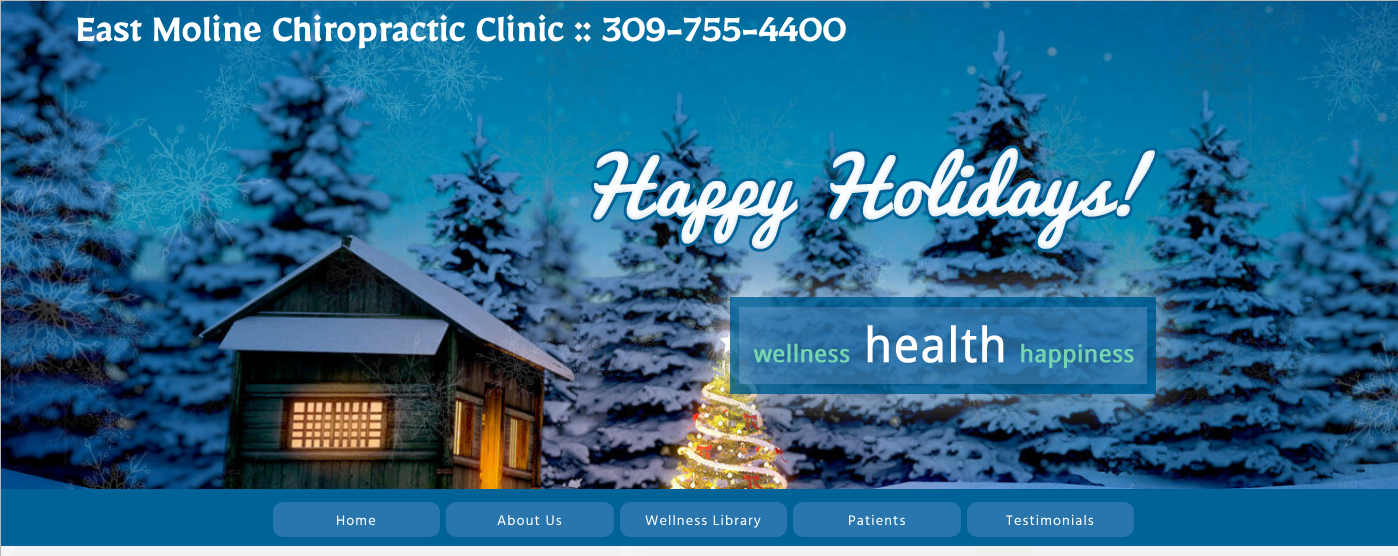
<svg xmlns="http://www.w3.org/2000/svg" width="1398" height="556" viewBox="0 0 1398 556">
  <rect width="100%" height="100%" fill="#ffffff"/>
  <rect x="0.5" y="0.5" width="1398" height="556" fill="none" stroke="#b8b8b8"/>
  <image x="1" y="1" width="1397" height="488" href="img1.png"/>
  <image x="590" y="145" width="600" height="283" href="img2.png"/>
  <text x="75" y="41" font-family="Mirza" font-size="42" font-weight="bold" letter-spacing="-0.4" fill="#ffffff">East Moline Chiropractic Clinic :: 309-755-4400</text>
  <rect x="1" y="489" width="1397" height="57" fill="#006397"/>
  <rect x="273" y="502" width="167" height="35" rx="10" fill="#2976ae"/>
  <text x="336" y="525" font-family="Hind Vadodara" font-size="14.25" letter-spacing="1.1" fill="#ffffff">Home</text>
  <rect x="446" y="502" width="168" height="35" rx="10" fill="#2976ae"/>
  <text x="497" y="525" font-family="Hind Vadodara" font-size="14.25" letter-spacing="1.1" fill="#ffffff">About Us</text>
  <rect x="620" y="502" width="167" height="35" rx="10" fill="#2976ae"/>
  <text x="645" y="525" font-family="Hind Vadodara" font-size="14.25" letter-spacing="1.1" fill="#ffffff">Wellness Library</text>
  <rect x="793" y="502" width="168" height="35" rx="10" fill="#2976ae"/>
  <text x="848" y="525" font-family="Hind Vadodara" font-size="14.25" letter-spacing="1.1" fill="#ffffff">Patients</text>
  <rect x="967" y="502" width="167" height="35" rx="10" fill="#2976ae"/>
  <text x="1006" y="525" font-family="Hind Vadodara" font-size="14.25" letter-spacing="1.1" fill="#ffffff">Testimonials</text>
  <image x="1" y="546" width="1397" height="10" href="img3.png"/>
</svg>
